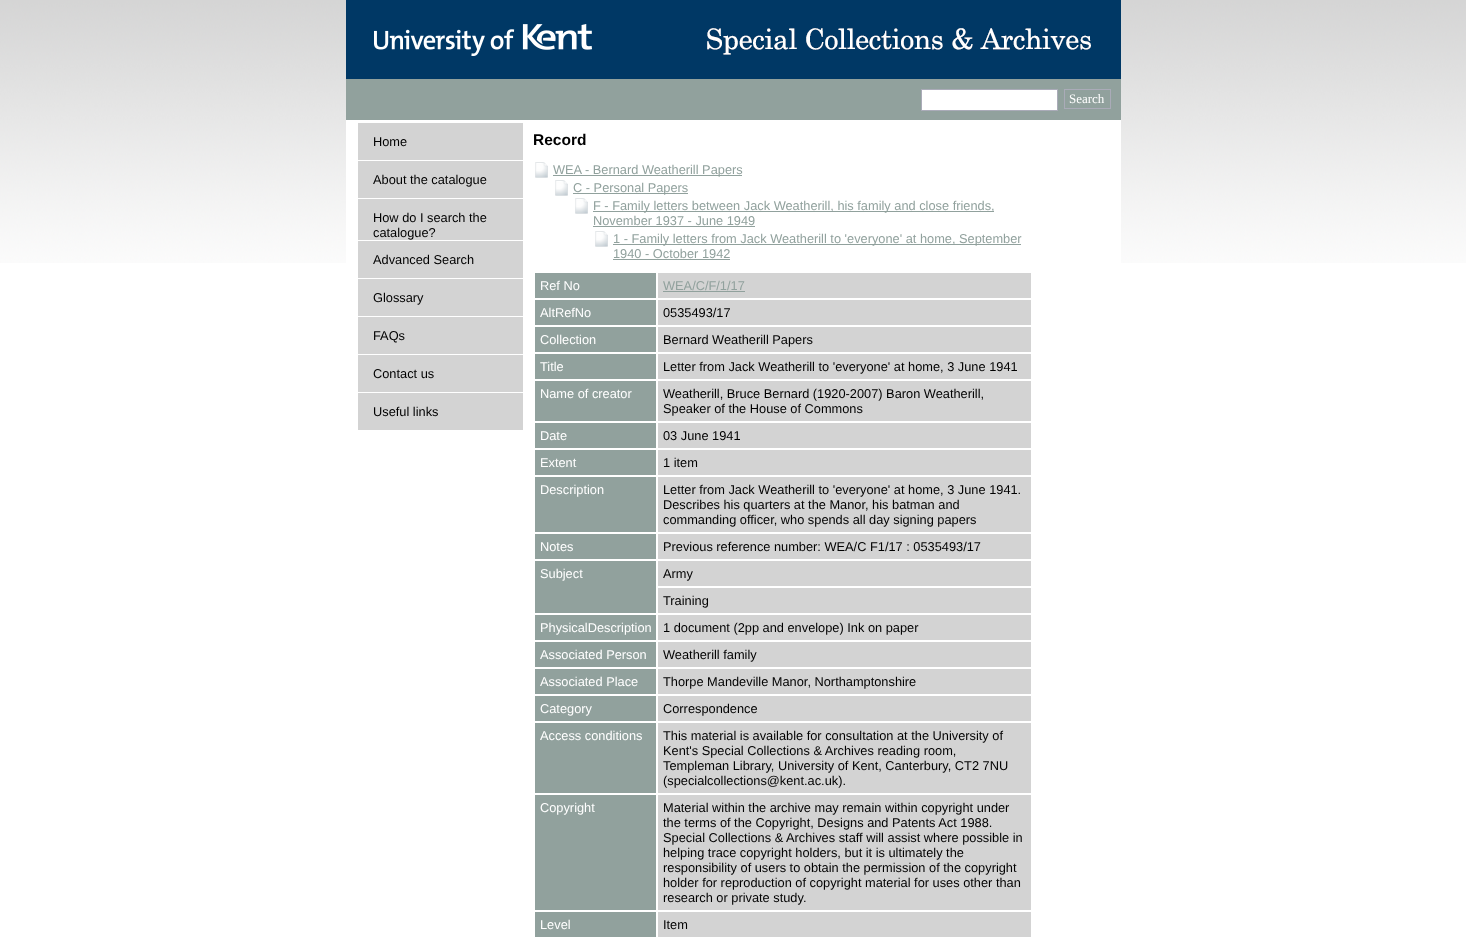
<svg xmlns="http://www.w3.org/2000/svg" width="1466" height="942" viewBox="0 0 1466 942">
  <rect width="100%" height="100%" fill="#ffffff"/>
  <image x="0" y="0" width="1466" height="263" href="img1.png"/>
  <image x="346" y="0" width="775" height="79" href="img2.png"/>
  <rect x="346" y="79" width="775" height="41" fill="#91a19d"/>
  <rect x="346" y="120" width="775" height="143" fill="#ffffff"/>
  <rect x="921.5" y="89.5" width="136" height="21" fill="#ffffff" stroke="#aaabb8"/>
  <rect x="1064.5" y="89.5" width="46" height="19" fill="none" stroke="#aaabb8"/>
  <text x="1069" y="103" font-family="Liberation Serif" font-size="13" fill="#ffffff">Search</text>
  <rect x="358" y="123" width="165" height="37" fill="#d3d3d3"/>
  <text x="373" y="146" font-family="Liberation Sans" font-size="12.8" fill="#000000">Home</text>
  <rect x="358" y="161" width="165" height="37" fill="#d3d3d3"/>
  <text x="373" y="184" font-family="Liberation Sans" font-size="12.8" fill="#000000">About the catalogue</text>
  <rect x="358" y="199" width="165" height="41" fill="#d3d3d3"/>
  <text x="373" y="222" font-family="Liberation Sans" font-size="12.8" fill="#000000">How do I search the</text>
  <text x="373" y="237" font-family="Liberation Sans" font-size="12.8" fill="#000000">catalogue?</text>
  <rect x="358" y="241" width="165" height="37" fill="#d3d3d3"/>
  <text x="373" y="264" font-family="Liberation Sans" font-size="12.8" fill="#000000">Advanced Search</text>
  <rect x="358" y="279" width="165" height="37" fill="#d3d3d3"/>
  <text x="373" y="302" font-family="Liberation Sans" font-size="12.8" fill="#000000">Glossary</text>
  <rect x="358" y="317" width="165" height="37" fill="#d3d3d3"/>
  <text x="373" y="340" font-family="Liberation Sans" font-size="12.8" fill="#000000">FAQs</text>
  <rect x="358" y="355" width="165" height="37" fill="#d3d3d3"/>
  <text x="373" y="378" font-family="Liberation Sans" font-size="12.8" fill="#000000">Contact us</text>
  <rect x="358" y="393" width="165" height="37" fill="#d3d3d3"/>
  <text x="373" y="416" font-family="Liberation Sans" font-size="12.8" fill="#000000">Useful links</text>
  <text x="533" y="145" font-family="Liberation Sans" font-size="15.5" font-weight="bold" fill="#000000">Record</text>
  <image x="535" y="162" width="13" height="16" href="img3.png"/>
  <rect x="553" y="175" width="189" height="1" fill="#91a19d"/>
  <text x="553" y="174" font-family="Liberation Sans" font-size="12.8" fill="#91a19d">WEA - Bernard Weatherill Papers</text>
  <image x="555" y="180" width="13" height="16" href="img3.png"/>
  <rect x="573" y="193" width="115" height="1" fill="#91a19d"/>
  <text x="573" y="192" font-family="Liberation Sans" font-size="12.8" fill="#91a19d">C - Personal Papers</text>
  <image x="575" y="198" width="13" height="16" href="img3.png"/>
  <rect x="593" y="211" width="401" height="1" fill="#91a19d"/>
  <text x="593" y="210" font-family="Liberation Sans" font-size="12.8" fill="#91a19d">F - Family letters between Jack Weatherill, his family and close friends,</text>
  <text x="593" y="225" font-family="Liberation Sans" font-size="12.8" fill="#91a19d">November 1937 - June 1949</text>
  <rect x="593" y="226" width="162" height="1" fill="#91a19d"/>
  <image x="595" y="231" width="13" height="16" href="img3.png"/>
  <rect x="613" y="244" width="408" height="1" fill="#91a19d"/>
  <text x="613" y="243" font-family="Liberation Sans" font-size="12.8" fill="#91a19d">1 - Family letters from Jack Weatherill to 'everyone' at home, September</text>
  <text x="613" y="258" font-family="Liberation Sans" font-size="12.8" fill="#91a19d">1940 - October 1942</text>
  <rect x="613" y="259" width="117" height="1" fill="#91a19d"/>
  <rect x="535" y="273" width="121" height="25" fill="#91a19d"/>
  <text x="540" y="290" font-family="Liberation Sans" font-size="12.8" fill="#ffffff">Ref No</text>
  <rect x="658" y="273" width="373" height="25" fill="#d3d3d3"/>
  <text x="663" y="290" font-family="Liberation Sans" font-size="12.8" fill="#91a19d">WEA/C/F/1/17</text>
  <rect x="663" y="291" width="82" height="1" fill="#91a19d"/>
  <rect x="535" y="300" width="121" height="25" fill="#91a19d"/>
  <text x="540" y="317" font-family="Liberation Sans" font-size="12.8" fill="#ffffff">AltRefNo</text>
  <rect x="658" y="300" width="373" height="25" fill="#d3d3d3"/>
  <text x="663" y="317" font-family="Liberation Sans" font-size="12.8" fill="#000000">0535493/17</text>
  <rect x="535" y="327" width="121" height="25" fill="#91a19d"/>
  <text x="540" y="344" font-family="Liberation Sans" font-size="12.8" fill="#ffffff">Collection</text>
  <rect x="658" y="327" width="373" height="25" fill="#d3d3d3"/>
  <text x="663" y="344" font-family="Liberation Sans" font-size="12.8" fill="#000000">Bernard Weatherill Papers</text>
  <rect x="535" y="354" width="121" height="25" fill="#91a19d"/>
  <text x="540" y="371" font-family="Liberation Sans" font-size="12.8" fill="#ffffff">Title</text>
  <rect x="658" y="354" width="373" height="25" fill="#d3d3d3"/>
  <text x="663" y="371" font-family="Liberation Sans" font-size="12.8" fill="#000000">Letter from Jack Weatherill to 'everyone' at home, 3 June 1941</text>
  <rect x="535" y="381" width="121" height="40" fill="#91a19d"/>
  <text x="540" y="398" font-family="Liberation Sans" font-size="12.8" fill="#ffffff">Name of creator</text>
  <rect x="658" y="381" width="373" height="40" fill="#d3d3d3"/>
  <text x="663" y="398" font-family="Liberation Sans" font-size="12.8" fill="#000000">Weatherill, Bruce Bernard (1920-2007) Baron Weatherill,</text>
  <text x="663" y="413" font-family="Liberation Sans" font-size="12.8" fill="#000000">Speaker of the House of Commons</text>
  <rect x="535" y="423" width="121" height="25" fill="#91a19d"/>
  <text x="540" y="440" font-family="Liberation Sans" font-size="12.8" fill="#ffffff">Date</text>
  <rect x="658" y="423" width="373" height="25" fill="#d3d3d3"/>
  <text x="663" y="440" font-family="Liberation Sans" font-size="12.8" fill="#000000">03 June 1941</text>
  <rect x="535" y="450" width="121" height="25" fill="#91a19d"/>
  <text x="540" y="467" font-family="Liberation Sans" font-size="12.8" fill="#ffffff">Extent</text>
  <rect x="658" y="450" width="373" height="25" fill="#d3d3d3"/>
  <text x="663" y="467" font-family="Liberation Sans" font-size="12.8" fill="#000000">1 item</text>
  <rect x="535" y="477" width="121" height="55" fill="#91a19d"/>
  <text x="540" y="494" font-family="Liberation Sans" font-size="12.8" fill="#ffffff">Description</text>
  <rect x="658" y="477" width="373" height="55" fill="#d3d3d3"/>
  <text x="663" y="494" font-family="Liberation Sans" font-size="12.8" fill="#000000">Letter from Jack Weatherill to 'everyone' at home, 3 June 1941.</text>
  <text x="663" y="509" font-family="Liberation Sans" font-size="12.8" fill="#000000">Describes his quarters at the Manor, his batman and</text>
  <text x="663" y="524" font-family="Liberation Sans" font-size="12.8" fill="#000000">commanding officer, who spends all day signing papers</text>
  <rect x="535" y="534" width="121" height="25" fill="#91a19d"/>
  <text x="540" y="551" font-family="Liberation Sans" font-size="12.8" fill="#ffffff">Notes</text>
  <rect x="658" y="534" width="373" height="25" fill="#d3d3d3"/>
  <text x="663" y="551" font-family="Liberation Sans" font-size="12.8" fill="#000000">Previous reference number: WEA/C F1/17 : 0535493/17</text>
  <rect x="535" y="561" width="121" height="52" fill="#91a19d"/>
  <text x="540" y="578" font-family="Liberation Sans" font-size="12.8" fill="#ffffff">Subject</text>
  <rect x="658" y="561" width="373" height="25" fill="#d3d3d3"/>
  <text x="663" y="578" font-family="Liberation Sans" font-size="12.8" fill="#000000">Army</text>
  <rect x="658" y="588" width="373" height="25" fill="#d3d3d3"/>
  <text x="663" y="605" font-family="Liberation Sans" font-size="12.8" fill="#000000">Training</text>
  <rect x="535" y="615" width="121" height="25" fill="#91a19d"/>
  <text x="540" y="632" font-family="Liberation Sans" font-size="12.8" fill="#ffffff">PhysicalDescription</text>
  <rect x="658" y="615" width="373" height="25" fill="#d3d3d3"/>
  <text x="663" y="632" font-family="Liberation Sans" font-size="12.8" fill="#000000">1 document (2pp and envelope) Ink on paper</text>
  <rect x="535" y="642" width="121" height="25" fill="#91a19d"/>
  <text x="540" y="659" font-family="Liberation Sans" font-size="12.8" fill="#ffffff">Associated Person</text>
  <rect x="658" y="642" width="373" height="25" fill="#d3d3d3"/>
  <text x="663" y="659" font-family="Liberation Sans" font-size="12.8" fill="#000000">Weatherill family</text>
  <rect x="535" y="669" width="121" height="25" fill="#91a19d"/>
  <text x="540" y="686" font-family="Liberation Sans" font-size="12.8" fill="#ffffff">Associated Place</text>
  <rect x="658" y="669" width="373" height="25" fill="#d3d3d3"/>
  <text x="663" y="686" font-family="Liberation Sans" font-size="12.8" fill="#000000">Thorpe Mandeville Manor, Northamptonshire</text>
  <rect x="535" y="696" width="121" height="25" fill="#91a19d"/>
  <text x="540" y="713" font-family="Liberation Sans" font-size="12.8" fill="#ffffff">Category</text>
  <rect x="658" y="696" width="373" height="25" fill="#d3d3d3"/>
  <text x="663" y="713" font-family="Liberation Sans" font-size="12.8" fill="#000000">Correspondence</text>
  <rect x="535" y="723" width="121" height="70" fill="#91a19d"/>
  <text x="540" y="740" font-family="Liberation Sans" font-size="12.8" fill="#ffffff">Access conditions</text>
  <rect x="658" y="723" width="373" height="70" fill="#d3d3d3"/>
  <text x="663" y="740" font-family="Liberation Sans" font-size="12.8" fill="#000000">This material is available for consultation at the University of</text>
  <text x="663" y="755" font-family="Liberation Sans" font-size="12.8" fill="#000000">Kent's Special Collections &amp; Archives reading room,</text>
  <text x="663" y="770" font-family="Liberation Sans" font-size="12.8" fill="#000000">Templeman Library, University of Kent, Canterbury, CT2 7NU</text>
  <text x="663" y="785" font-family="Liberation Sans" font-size="12.8" fill="#000000">(specialcollections@kent.ac.uk).</text>
  <rect x="535" y="795" width="121" height="115" fill="#91a19d"/>
  <text x="540" y="812" font-family="Liberation Sans" font-size="12.8" fill="#ffffff">Copyright</text>
  <rect x="658" y="795" width="373" height="115" fill="#d3d3d3"/>
  <text x="663" y="812" font-family="Liberation Sans" font-size="12.8" fill="#000000">Material within the archive may remain within copyright under</text>
  <text x="663" y="827" font-family="Liberation Sans" font-size="12.8" fill="#000000">the terms of the Copyright, Designs and Patents Act 1988.</text>
  <text x="663" y="842" font-family="Liberation Sans" font-size="12.8" fill="#000000">Special Collections &amp; Archives staff will assist where possible in</text>
  <text x="663" y="857" font-family="Liberation Sans" font-size="12.8" fill="#000000">helping trace copyright holders, but it is ultimately the</text>
  <text x="663" y="872" font-family="Liberation Sans" font-size="12.8" fill="#000000">responsibility of users to obtain the permission of the copyright</text>
  <text x="663" y="887" font-family="Liberation Sans" font-size="12.8" fill="#000000">holder for reproduction of copyright material for uses other than</text>
  <text x="663" y="902" font-family="Liberation Sans" font-size="12.8" fill="#000000">research or private study.</text>
  <rect x="535" y="912" width="121" height="25" fill="#91a19d"/>
  <text x="540" y="929" font-family="Liberation Sans" font-size="12.8" fill="#ffffff">Level</text>
  <rect x="658" y="912" width="373" height="25" fill="#d3d3d3"/>
  <text x="663" y="929" font-family="Liberation Sans" font-size="12.8" fill="#000000">Item</text>
</svg>
